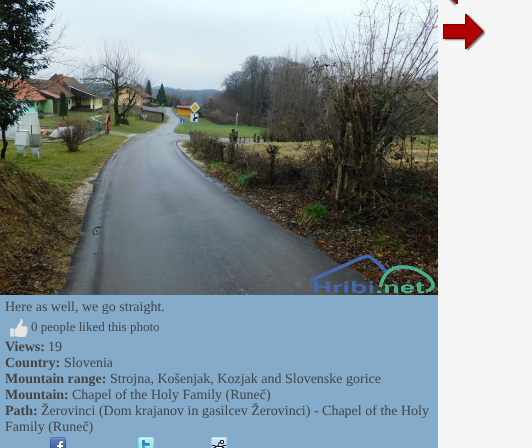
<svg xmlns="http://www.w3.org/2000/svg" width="532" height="448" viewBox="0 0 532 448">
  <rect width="100%" height="100%" fill="#f5f5f5"/>
  <image x="448" y="0" width="10" height="6" href="img1.png"/>
  <image x="443" y="14" width="42" height="37" href="img2.png"/>
  <rect x="0" y="295" width="438" height="153" fill="#85abca"/>
  <image x="0" y="0" width="438" height="295" href="img3.png"/>
  <text x="5" y="311" font-family="Liberation Serif" font-size="14" fill="#444444">Here as well, we go straight.</text>
  <image x="10" y="319" width="18" height="18" href="img4.png"/>
  <text x="31" y="331" font-family="Liberation Serif" font-size="13" fill="#444444">0 people liked this photo</text>
  <text x="5" y="351" font-family="Liberation Serif" font-size="14" font-weight="bold" fill="#444444">Views:</text>
  <text x="48" y="351" font-family="Liberation Serif" font-size="14" fill="#444444">19</text>
  <text x="5" y="367" font-family="Liberation Serif" font-size="14" font-weight="bold" fill="#444444">Country:</text>
  <text x="64" y="367" font-family="Liberation Serif" font-size="14" fill="#444444">Slovenia</text>
  <text x="5" y="383" font-family="Liberation Serif" font-size="14" font-weight="bold" fill="#444444">Mountain range:</text>
  <text x="110" y="383" font-family="Liberation Serif" font-size="14" fill="#444444">Strojna, Košenjak, Kozjak and Slovenske gorice</text>
  <text x="5" y="399" font-family="Liberation Serif" font-size="14" font-weight="bold" fill="#444444">Mountain:</text>
  <text x="72" y="399" font-family="Liberation Serif" font-size="14" fill="#444444">Chapel of the Holy Family (Runeč)</text>
  <text x="5" y="415" font-family="Liberation Serif" font-size="14" font-weight="bold" fill="#444444">Path:</text>
  <text x="41" y="415" font-family="Liberation Serif" font-size="14" fill="#444444">Žerovinci (Dom krajanov in gasilcev Žerovinci) - Chapel of the Holy</text>
  <text x="5" y="431" font-family="Liberation Serif" font-size="14" fill="#444444">Family (Runeč)</text>
  <image x="50" y="437" width="16" height="11" href="img5.png"/>
  <image x="138" y="437" width="16" height="11" href="img6.png"/>
  <image x="211" y="437" width="16" height="11" href="img7.png"/>
</svg>
